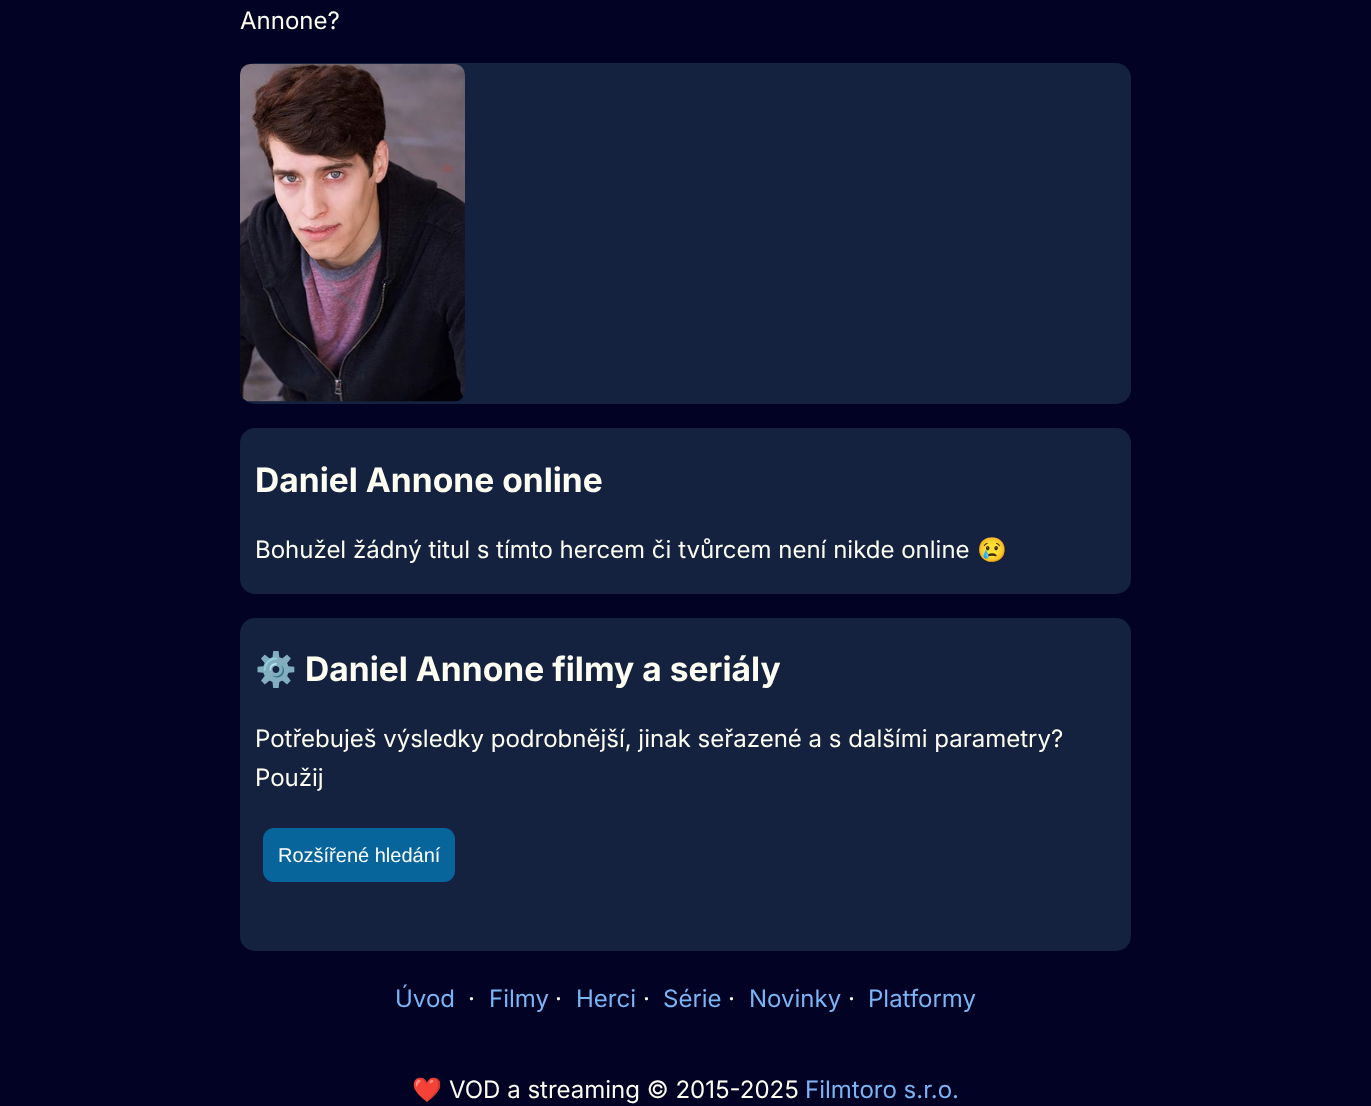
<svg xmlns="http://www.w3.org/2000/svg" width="1371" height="1106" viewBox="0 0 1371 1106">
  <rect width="100%" height="100%" fill="#020324"/>
  <text x="240" y="29" font-family="Inter" font-size="24" fill="#fdfdf1">Annone?</text>
  <rect x="240" y="63" width="891" height="341" rx="15" fill="#142240"/>
  <image x="240" y="64" width="225" height="338" href="img1.png"/>
  <rect x="240" y="428" width="891" height="166" rx="15" fill="#142240"/>
  <text x="255" y="492" font-family="Inter" font-size="33.6" font-weight="bold" fill="#fdfdf1">Daniel Annone online</text>
  <text x="255" y="558" font-family="Inter" font-size="24" fill="#fdfdf1">Bohužel žádný titul s tímto hercem či tvůrcem není nikde online</text>
  <text x="977" y="558" font-family="Noto Color Emoji" font-size="24" fill="#fdfdf1">😢</text>
  <rect x="240" y="618" width="891" height="333" rx="15" fill="#142240"/>
  <text x="255" y="681" font-family="Noto Color Emoji" font-size="33.6" font-weight="bold" fill="#fdfdf1">⚙️</text>
  <text x="305" y="681" font-family="Inter" font-size="33.6" font-weight="bold" fill="#fdfdf1">Daniel Annone filmy a seriály</text>
  <text x="255" y="747" font-family="Inter" font-size="24" fill="#fdfdf1">Potřebuješ výsledky podrobnější, jinak seřazené a s dalšími parametry?</text>
  <text x="255" y="786" font-family="Inter" font-size="24" fill="#fdfdf1">Použij</text>
  <rect x="263" y="828" width="192" height="54" rx="11" fill="#07659c"/>
  <text x="278" y="862" font-family="Liberation Sans" font-size="20" fill="#ffffff">Rozšířené hledání</text>
  <text x="395" y="1007" font-family="Inter" font-size="24" fill="#7bb5f5">Úvod</text>
  <text x="468" y="1007" font-family="Inter" font-size="24" fill="#fdfdf1">·</text>
  <text x="489" y="1007" font-family="Inter" font-size="24" fill="#7bb5f5">Filmy</text>
  <text x="555" y="1007" font-family="Inter" font-size="24" fill="#fdfdf1">·</text>
  <text x="576" y="1007" font-family="Inter" font-size="24" fill="#7bb5f5">Herci</text>
  <text x="643" y="1007" font-family="Inter" font-size="24" fill="#fdfdf1">·</text>
  <text x="663" y="1007" font-family="Inter" font-size="24" fill="#7bb5f5">Série</text>
  <text x="728" y="1007" font-family="Inter" font-size="24" fill="#fdfdf1">·</text>
  <text x="749" y="1007" font-family="Inter" font-size="24" fill="#7bb5f5">Novinky</text>
  <text x="848" y="1007" font-family="Inter" font-size="24" fill="#fdfdf1">·</text>
  <text x="868" y="1007" font-family="Inter" font-size="24" fill="#7bb5f5">Platformy</text>
  <text x="412" y="1098" font-family="Noto Color Emoji" font-size="24" fill="#fdfdf1">❤️</text>
  <text x="449" y="1098" font-family="Inter" font-size="24" fill="#fdfdf1">VOD a streaming © 2015-2025</text>
  <text x="805" y="1098" font-family="Inter" font-size="24" fill="#7bb5f5">Filmtoro s.r.o.</text>
</svg>
